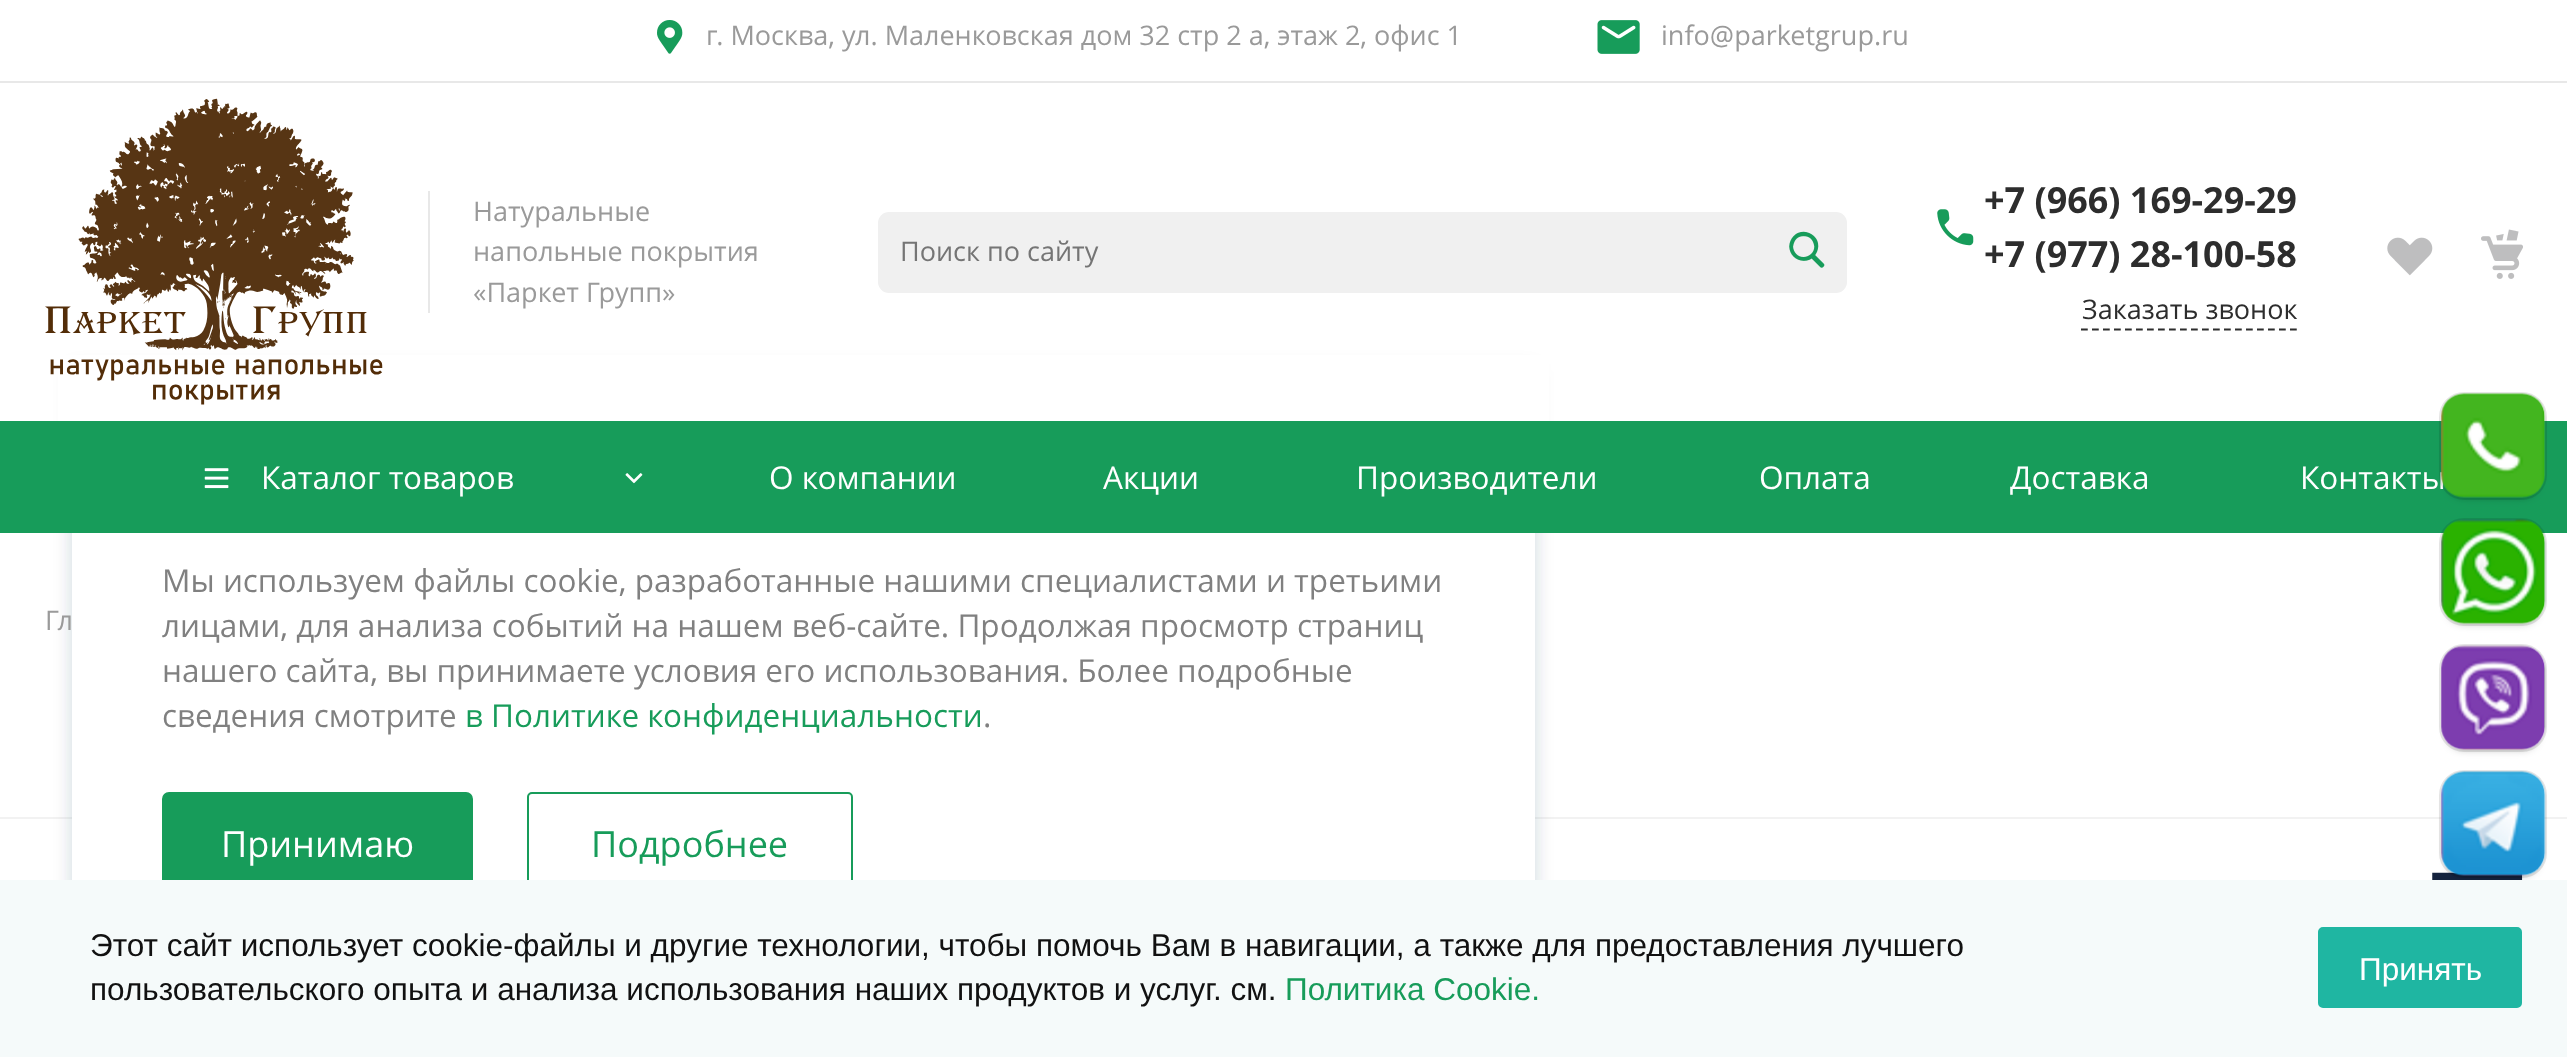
<svg xmlns="http://www.w3.org/2000/svg" width="2567" height="1057" viewBox="0 0 2567 1057">
  <defs>
    <filter id="blur1" x="-50%" y="-200%" width="200%" height="500%"><feGaussianBlur stdDeviation="9"/></filter>
    <filter id="blur2" x="-50%" y="-200%" width="200%" height="500%"><feGaussianBlur stdDeviation="4.5"/></filter>
    <clipPath id="clip1"><path d="M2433 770H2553V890H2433ZM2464 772H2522C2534.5 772 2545 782.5 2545 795V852C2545 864.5 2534.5 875 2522 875H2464C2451.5 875 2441 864.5 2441 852V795C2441 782.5 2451.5 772 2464 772Z" clip-rule="evenodd"/></clipPath>
  </defs>
  <rect width="100%" height="100%" fill="#ffffff"/>
  <rect x="0" y="817" width="2567" height="2" fill="#f2f2f2"/>
  <rect x="72" y="369" width="1463" height="621" rx="5" fill="#223c50" fill-opacity="0.2" filter="url(#blur1)"/>
  <rect x="58" y="355" width="1491" height="66" fill="#ffffff"/>
  <rect x="0" y="81" width="2567" height="2" fill="#e8e8e8"/>
  <image x="657" y="20" width="26" height="34" href="img1.png"/>
  <text x="706" y="45" font-family="Open Sans" font-size="27" fill="#9a9a9a">г. Москва, ул. Маленковская дом 32 стр 2 а, этаж 2, офис 1</text>
  <image x="1597" y="20" width="43" height="34" href="img2.png"/>
  <text x="1661" y="45" font-family="Open Sans" font-size="27" fill="#9a9a9a">info@parketgrup.ru</text>
  <image x="45" y="98" width="338" height="307" href="img3.png"/>
  <rect x="428" y="191" width="2" height="122" fill="#e8e8e8"/>
  <text x="473" y="221" font-family="Open Sans" font-size="27" fill="#9a9a9a">Натуральные</text>
  <text x="473" y="261" font-family="Open Sans" font-size="27" fill="#9a9a9a">напольные покрытия</text>
  <text x="473" y="302" font-family="Open Sans" font-size="27" fill="#9a9a9a">«Паркет Групп»</text>
  <rect x="878" y="212" width="969" height="81" rx="11" fill="#f0f0f0"/>
  <text x="900" y="261" font-family="Open Sans" font-size="27" fill="#757575">Поиск по сайту</text>
  <image x="1789" y="231" width="36" height="37" href="img4.png"/>
  <image x="1937" y="209" width="37" height="37" href="img5.png"/>
  <text x="1984" y="213" font-family="Open Sans" font-size="36" font-weight="bold" fill="#2d2d2d">+7 (966) 169-29-29</text>
  <text x="1984" y="267" font-family="Open Sans" font-size="36" font-weight="bold" fill="#2d2d2d">+7 (977) 28-100-58</text>
  <path d="M2081 329.5H2297" fill="none" stroke="#2d2d2d" stroke-width="2.2" stroke-dasharray="6.75 4.25"/>
  <text x="2082" y="319" font-family="Open Sans" font-size="27" fill="#2d2d2d">Заказать звонок</text>
  <image x="2387" y="237" width="46" height="39" href="img6.png"/>
  <image x="2481" y="229" width="42" height="50" href="img7.png"/>
  <rect x="0" y="421" width="2567" height="112" fill="#179c5a"/>
  <image x="204" y="468" width="25" height="21" href="img8.png"/>
  <text x="261" y="489" font-family="Open Sans" font-size="31.5" fill="#ffffff">Каталог товаров</text>
  <image x="625" y="473" width="18" height="11" href="img9.png"/>
  <text x="769" y="489" font-family="Open Sans" font-size="31.5" fill="#ffffff">О компании</text>
  <text x="1103" y="489" font-family="Open Sans" font-size="31.5" fill="#ffffff">Акции</text>
  <text x="1356" y="489" font-family="Open Sans" font-size="31.5" fill="#ffffff">Производители</text>
  <text x="1759" y="489" font-family="Open Sans" font-size="31.5" fill="#ffffff">Оплата</text>
  <text x="2010" y="489" font-family="Open Sans" font-size="31.5" fill="#ffffff">Доставка</text>
  <text x="2300" y="489" font-family="Open Sans" font-size="31.5" fill="#ffffff">Контакты</text>
  <text x="45" y="630" font-family="Open Sans" font-size="27" fill="#9a9a9a">Гл</text>
  <image x="2432" y="872" width="91" height="8" href="img10.png"/>
  <rect x="2448" y="407" width="90" height="90" rx="16" fill="#000000" fill-opacity="0.3" filter="url(#blur2)"/>
  <rect x="2440" y="393" width="106" height="106" rx="24" fill="none" stroke="#000000" stroke-opacity="0.1" stroke-width="2"/>
  <image x="2441" y="393" width="105" height="105" href="img11.png"/>
  <rect x="2448" y="533" width="90" height="90" rx="16" fill="#000000" fill-opacity="0.3" filter="url(#blur2)"/>
  <rect x="2440" y="519" width="106" height="106" rx="24" fill="none" stroke="#000000" stroke-opacity="0.1" stroke-width="2"/>
  <image x="2441" y="519" width="105" height="105" href="img12.png"/>
  <rect x="2448" y="659" width="90" height="90" rx="16" fill="#000000" fill-opacity="0.3" filter="url(#blur2)"/>
  <rect x="2440" y="645" width="106" height="106" rx="24" fill="none" stroke="#000000" stroke-opacity="0.1" stroke-width="2"/>
  <image x="2441" y="645" width="105" height="105" href="img13.png"/>
  <g clip-path="url(#clip1)">
    <rect x="2448" y="785" width="90" height="90" rx="16" fill="#000000" fill-opacity="0.3" filter="url(#blur2)"/>
  </g>
  <rect x="2440" y="771" width="106" height="106" rx="24" fill="none" stroke="#000000" stroke-opacity="0.1" stroke-width="2"/>
  <image x="2441" y="771" width="105" height="105" href="img14.png"/>
  <rect x="72" y="533" width="1463" height="347" fill="#ffffff"/>
  <text x="162" y="592" font-family="Open Sans" font-size="31.5" fill="#808080">Мы используем файлы cookie, разработанные нашими специалистами и третьими</text>
  <text x="162" y="637" font-family="Open Sans" font-size="31.5" fill="#808080">лицами, для анализа событий на нашем веб-сайте. Продолжая просмотр страниц</text>
  <text x="162" y="682" font-family="Open Sans" font-size="31.5" fill="#808080">нашего сайта, вы принимаете условия его использования. Более подробные</text>
  <text x="162" y="727" font-family="Open Sans" font-size="31.5" fill="#808080">сведения смотрите</text>
  <text x="465" y="727" font-family="Open Sans" font-size="31.5" fill="#179c5a">в Политике конфиденциальности</text>
  <text x="983" y="727" font-family="Open Sans" font-size="31.5" fill="#808080">.</text>
  <rect x="164.5" y="794.5" width="306" height="99" rx="4.5" fill="#179c5a" stroke="#179c5a" stroke-width="5"/>
  <text x="221" y="857" font-family="Open Sans" font-size="36" fill="#ffffff">Принимаю</text>
  <rect x="528" y="793" width="324" height="102" rx="4" fill="none" stroke="#179c5a" stroke-width="2"/>
  <text x="591" y="857" font-family="Open Sans" font-size="36" fill="#179c5a">Подробнее</text>
  <rect x="0" y="880" width="2567" height="177" fill="#f5fafa"/>
  <text x="90" y="956" font-family="Liberation Sans" font-size="31.5" fill="#111111">Этот сайт использует cookie-файлы и другие технологии, чтобы помочь Вам в навигации, а также для предоставления лучшего</text>
  <text x="90" y="1000" font-family="Liberation Sans" font-size="31.5" fill="#111111">пользовательского опыта и анализа использования наших продуктов и услуг. см.</text>
  <text x="1285" y="1000" font-family="Liberation Sans" font-size="31.5" fill="#179c5a">Политика Cookie.</text>
  <rect x="2320.5" y="929.5" width="199" height="76" rx="2.5" fill="#1fb6a2" stroke="#1fb6a2" stroke-width="5"/>
  <text x="2359" y="980" font-family="Liberation Sans" font-size="31.5" fill="#ffffff">Принять</text>
</svg>
